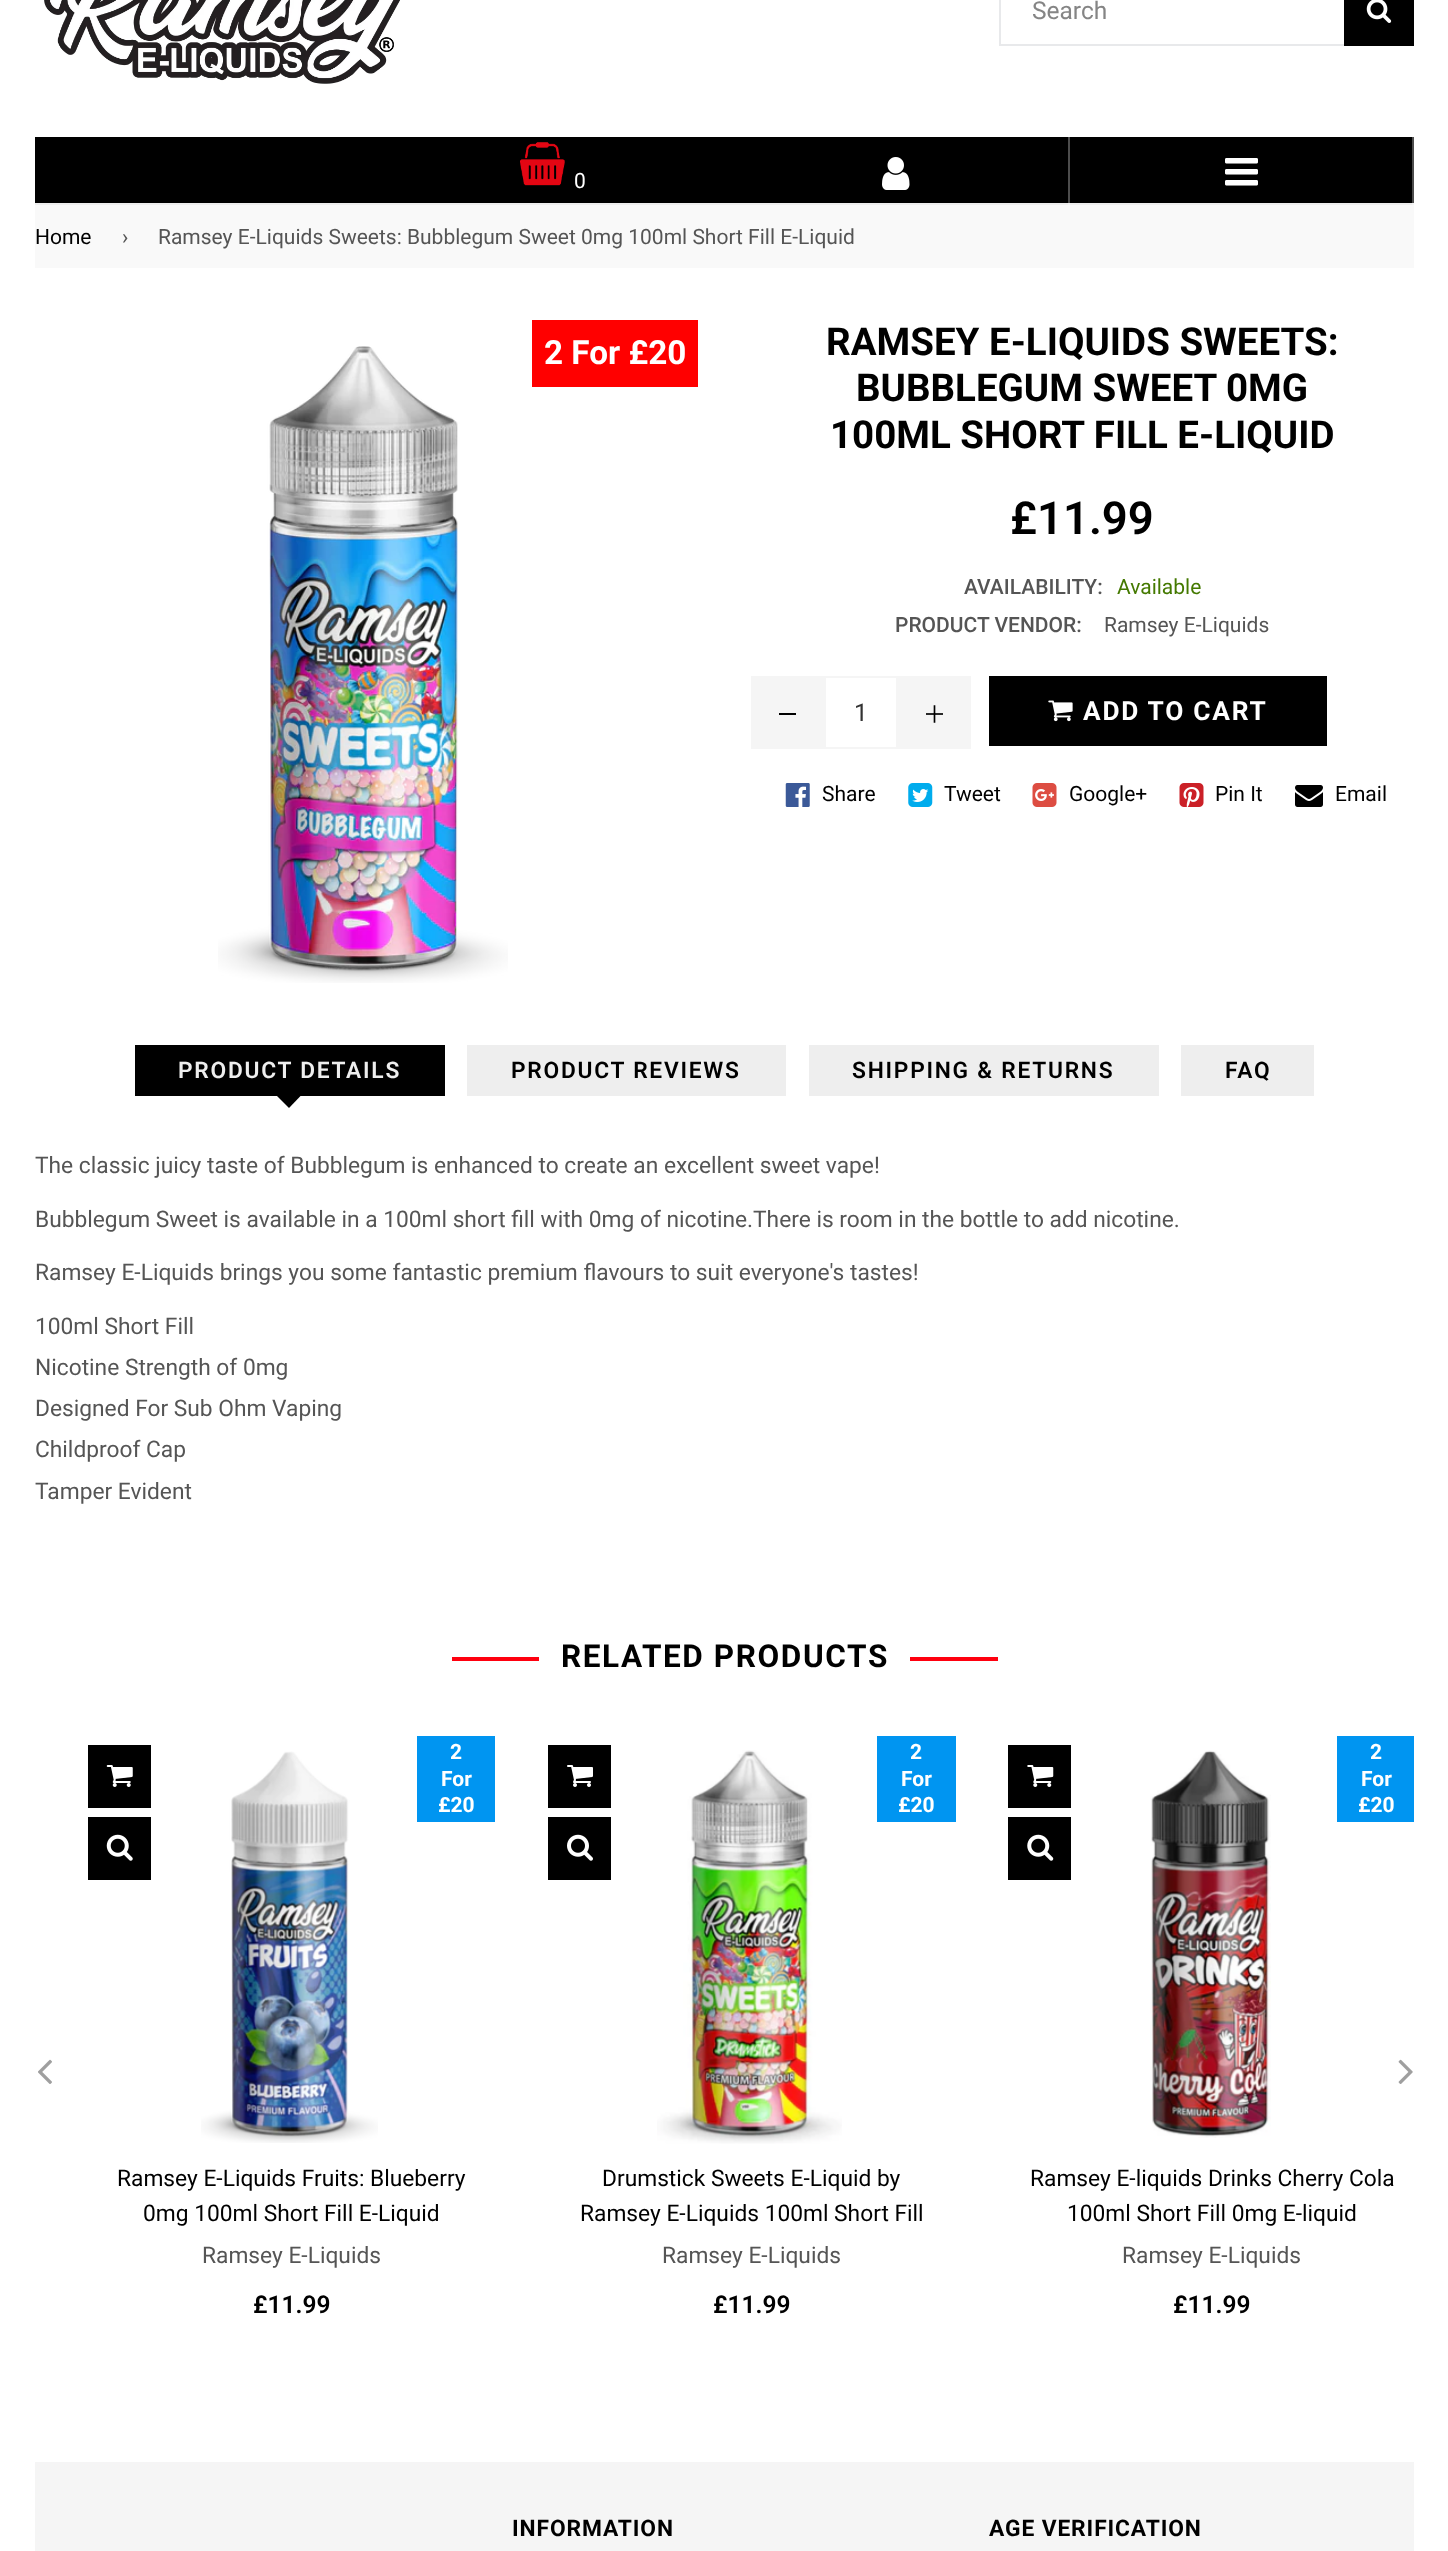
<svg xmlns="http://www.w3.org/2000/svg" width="1448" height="2551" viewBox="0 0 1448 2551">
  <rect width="100%" height="100%" fill="#ffffff"/>
  <image x="44" y="0" width="356" height="84" href="img1.png"/>
  <rect x="999" y="44" width="345" height="2" fill="#e8e9eb"/>
  <rect x="999" y="0" width="2" height="46" fill="#e8e9eb"/>
  <text x="1032" y="19" font-family="Roboto" font-size="24.5" fill="#858585">Search</text>
  <rect x="1344" y="0" width="70" height="46" fill="#000000"/>
  <image x="1366" y="0" width="26" height="23" href="img2.png"/>
  <rect x="35" y="137" width="1377" height="66" fill="#000000"/>
  <rect x="1068" y="137" width="2" height="68" fill="#4d4d4d"/>
  <rect x="1412" y="137" width="2" height="68" fill="#4d4d4d"/>
  <rect x="35" y="203" width="1379" height="2" fill="#eeeeee"/>
  <rect x="1068" y="203" width="2" height="2" fill="#f3f3f3"/>
  <rect x="1412" y="203" width="2" height="2" fill="#f3f3f3"/>
  <image x="520" y="142" width="45" height="44" href="img3.png"/>
  <text x="574" y="188" font-family="Roboto" font-size="21" letter-spacing="2" fill="#ffffff">0</text>
  <image x="882" y="157" width="28" height="33" href="img4.png"/>
  <image x="1225" y="158" width="33" height="28" href="img5.png"/>
  <rect x="35" y="205" width="1379" height="63" fill="#f9f9f9"/>
  <text x="35" y="244" font-family="Roboto" font-size="21" fill="#000000">Home</text>
  <text x="122" y="244" font-family="Roboto" font-size="21" fill="#555555">›</text>
  <text x="158" y="244" font-family="Roboto" font-size="21" fill="#555555">Ramsey E-Liquids Sweets: Bubblegum Sweet 0mg 100ml Short Fill E-Liquid</text>
  <image x="218" y="346" width="290" height="637" href="img6.png"/>
  <rect x="532" y="320" width="166" height="67" fill="#ff0000"/>
  <text x="544" y="364" font-family="Roboto" font-size="33.25" font-weight="bold" fill="#ffffff">2 For £20</text>
  <text x="826" y="355" font-family="Roboto" font-size="38.5" font-weight="bold" fill="#000000">RAMSEY E-LIQUIDS SWEETS:</text>
  <text x="856" y="401" font-family="Roboto" font-size="38.5" font-weight="bold" fill="#000000">BUBBLEGUM SWEET 0MG</text>
  <text x="830" y="448" font-family="Roboto" font-size="38.5" font-weight="bold" fill="#000000">100ML SHORT FILL E-LIQUID</text>
  <text x="1010" y="534" font-family="Roboto" font-size="45.5" font-weight="600" fill="#000000">£11.99</text>
  <text x="964" y="594" font-family="Roboto" font-size="21" font-weight="500" fill="#555555">AVAILABILITY:</text>
  <text x="1117" y="594" font-family="Roboto" font-size="21" fill="#447900">Available</text>
  <text x="895" y="632" font-family="Roboto" font-size="21" font-weight="500" fill="#555555">PRODUCT VENDOR:</text>
  <text x="1104" y="632" font-family="Roboto" font-size="21" fill="#555555">Ramsey E-Liquids</text>
  <rect x="751" y="676" width="73" height="73" fill="#f5f5f5"/>
  <rect x="779" y="713" width="17" height="2" fill="#000000"/>
  <rect x="825" y="677" width="72" height="71" fill="none" stroke="#f5f5f5" stroke-width="2"/>
  <text x="854" y="721" font-family="Roboto" font-size="24.5" fill="#333333">1</text>
  <rect x="898" y="676" width="73" height="73" fill="#f5f5f5"/>
  <image x="926" y="705" width="17" height="18" href="img7.png"/>
  <rect x="989" y="676" width="338" height="70" fill="#000000"/>
  <image x="1048" y="700" width="25" height="22" href="img8.png"/>
  <text x="1083" y="720" font-family="Roboto" font-size="26.25" font-weight="bold" letter-spacing="1.75" fill="#ffffff">ADD TO CART</text>
  <image x="785" y="783" width="25" height="24" href="img9.png"/>
  <text x="822" y="801" font-family="Roboto" font-size="21" fill="#000000">Share</text>
  <image x="908" y="783" width="25" height="24" href="img10.png"/>
  <text x="944" y="801" font-family="Roboto" font-size="21" fill="#000000">Tweet</text>
  <image x="1032" y="783" width="25" height="24" href="img11.png"/>
  <text x="1069" y="801" font-family="Roboto" font-size="21" fill="#000000">Google+</text>
  <image x="1179" y="783" width="25" height="24" href="img12.png"/>
  <text x="1215" y="801" font-family="Roboto" font-size="21" fill="#000000">Pin It</text>
  <image x="1295" y="785" width="28" height="22" href="img13.png"/>
  <text x="1335" y="801" font-family="Roboto" font-size="21" fill="#000000">Email</text>
  <rect x="135" y="1045" width="310" height="51" fill="#000000"/>
  <text x="178" y="1078" font-family="Roboto" font-size="22.75" font-weight="600" letter-spacing="1.75" fill="#eeeeee">PRODUCT DETAILS</text>
  <path d="M276.5 1095.5H301L289 1108Z" fill="#000000"/>
  <rect x="467" y="1045" width="319" height="51" fill="#eeeeee"/>
  <text x="511" y="1078" font-family="Roboto" font-size="22.75" font-weight="600" letter-spacing="1.75" fill="#000000">PRODUCT REVIEWS</text>
  <rect x="809" y="1045" width="350" height="51" fill="#eeeeee"/>
  <text x="852" y="1078" font-family="Roboto" font-size="22.75" font-weight="600" letter-spacing="1.75" fill="#000000">SHIPPING &amp; RETURNS</text>
  <rect x="1181" y="1045" width="133" height="51" fill="#eeeeee"/>
  <text x="1225" y="1078" font-family="Roboto" font-size="22.75" font-weight="600" letter-spacing="1.75" fill="#000000">FAQ</text>
  <text x="35" y="1173" font-family="Roboto" font-size="22.75" fill="#555555">The classic juicy taste of Bubblegum is enhanced to create an excellent sweet vape!</text>
  <text x="35" y="1227" font-family="Roboto" font-size="22.75" fill="#555555">Bubblegum Sweet is available in a 100ml short fill with 0mg of nicotine.There is room in the bottle to add nicotine.</text>
  <text x="35" y="1280" font-family="Roboto" font-size="22.75" fill="#555555">Ramsey E-Liquids brings you some fantastic premium flavours to suit everyone's tastes!</text>
  <text x="35" y="1334" font-family="Roboto" font-size="22.75" fill="#555555">100ml Short Fill</text>
  <text x="35" y="1375" font-family="Roboto" font-size="22.75" fill="#555555">Nicotine Strength of 0mg</text>
  <text x="35" y="1416" font-family="Roboto" font-size="22.75" fill="#555555">Designed For Sub Ohm Vaping</text>
  <text x="35" y="1457" font-family="Roboto" font-size="22.75" fill="#555555">Childproof Cap</text>
  <text x="35" y="1499" font-family="Roboto" font-size="22.75" fill="#555555">Tamper Evident</text>
  <rect x="452" y="1657" width="87" height="4" fill="#ff000f"/>
  <text x="561" y="1667" font-family="Roboto" font-size="31.5" font-weight="bold" letter-spacing="1.6" fill="#000000">RELATED PRODUCTS</text>
  <rect x="910" y="1657" width="88" height="4" fill="#ff000f"/>
  <image x="38" y="2059" width="14" height="25" href="img14.png"/>
  <rect x="88" y="1745" width="63" height="63" fill="#000000"/>
  <image x="106" y="1765" width="27" height="22" href="img15.png"/>
  <rect x="88" y="1817" width="63" height="63" fill="#000000"/>
  <image x="106" y="1834" width="27" height="27" href="img16.png"/>
  <image x="201" y="1751" width="177" height="392" href="img17.png"/>
  <rect x="417" y="1736" width="78" height="86" fill="#0095f1"/>
  <text x="450" y="1759" font-family="Roboto" font-size="21" font-weight="bold" fill="#ffffff">2</text>
  <text x="441" y="1786" font-family="Roboto" font-size="21" font-weight="bold" fill="#ffffff">For</text>
  <text x="438" y="1812" font-family="Roboto" font-size="21" font-weight="bold" fill="#ffffff">£20</text>
  <text x="117" y="2186" font-family="Roboto" font-size="22.75" fill="#000000">Ramsey E-Liquids Fruits: Blueberry</text>
  <text x="143" y="2221" font-family="Roboto" font-size="22.75" fill="#000000">0mg 100ml Short Fill E-Liquid</text>
  <text x="202" y="2263" font-family="Roboto" font-size="22.75" fill="#555555">Ramsey E-Liquids</text>
  <text x="253" y="2313" font-family="Roboto" font-size="24.5" font-weight="600" fill="#000000">£11.99</text>
  <rect x="548" y="1745" width="63" height="63" fill="#000000"/>
  <image x="567" y="1765" width="26" height="22" href="img18.png"/>
  <rect x="548" y="1817" width="63" height="63" fill="#000000"/>
  <image x="567" y="1834" width="26" height="27" href="img19.png"/>
  <image x="657" y="1750" width="185" height="394" href="img20.png"/>
  <rect x="877" y="1736" width="79" height="86" fill="#0095f1"/>
  <text x="910" y="1759" font-family="Roboto" font-size="21" font-weight="bold" fill="#ffffff">2</text>
  <text x="901" y="1786" font-family="Roboto" font-size="21" font-weight="bold" fill="#ffffff">For</text>
  <text x="898" y="1812" font-family="Roboto" font-size="21" font-weight="bold" fill="#ffffff">£20</text>
  <text x="602" y="2186" font-family="Roboto" font-size="22.75" fill="#000000">Drumstick Sweets E-Liquid by</text>
  <text x="580" y="2221" font-family="Roboto" font-size="22.75" fill="#000000">Ramsey E-Liquids 100ml Short Fill</text>
  <text x="662" y="2263" font-family="Roboto" font-size="22.75" fill="#555555">Ramsey E-Liquids</text>
  <text x="713" y="2313" font-family="Roboto" font-size="24.5" font-weight="600" fill="#000000">£11.99</text>
  <rect x="1008" y="1745" width="63" height="63" fill="#000000"/>
  <image x="1027" y="1765" width="27" height="22" href="img21.png"/>
  <rect x="1008" y="1817" width="63" height="63" fill="#000000"/>
  <image x="1027" y="1834" width="27" height="27" href="img22.png"/>
  <image x="1150" y="1750" width="121" height="388" href="img23.png"/>
  <rect x="1337" y="1736" width="77" height="86" fill="#0095f1"/>
  <text x="1370" y="1759" font-family="Roboto" font-size="21" font-weight="bold" fill="#ffffff">2</text>
  <text x="1361" y="1786" font-family="Roboto" font-size="21" font-weight="bold" fill="#ffffff">For</text>
  <text x="1358" y="1812" font-family="Roboto" font-size="21" font-weight="bold" fill="#ffffff">£20</text>
  <text x="1030" y="2186" font-family="Roboto" font-size="22.75" fill="#000000">Ramsey E-liquids Drinks Cherry Cola</text>
  <text x="1067" y="2221" font-family="Roboto" font-size="22.75" fill="#000000">100ml Short Fill 0mg E-liquid</text>
  <text x="1122" y="2263" font-family="Roboto" font-size="22.75" fill="#555555">Ramsey E-Liquids</text>
  <text x="1173" y="2313" font-family="Roboto" font-size="24.5" font-weight="600" fill="#000000">£11.99</text>
  <image x="1398" y="2059" width="15" height="25" href="img24.png"/>
  <rect x="35" y="2462" width="1379" height="89" fill="#f5f5f5"/>
  <text x="512" y="2536" font-family="Roboto" font-size="22.75" font-weight="bold" letter-spacing="0.9" fill="#000000">INFORMATION</text>
  <text x="989" y="2536" font-family="Roboto" font-size="22.75" font-weight="bold" letter-spacing="0.9" fill="#000000">AGE VERIFICATION</text>
</svg>
